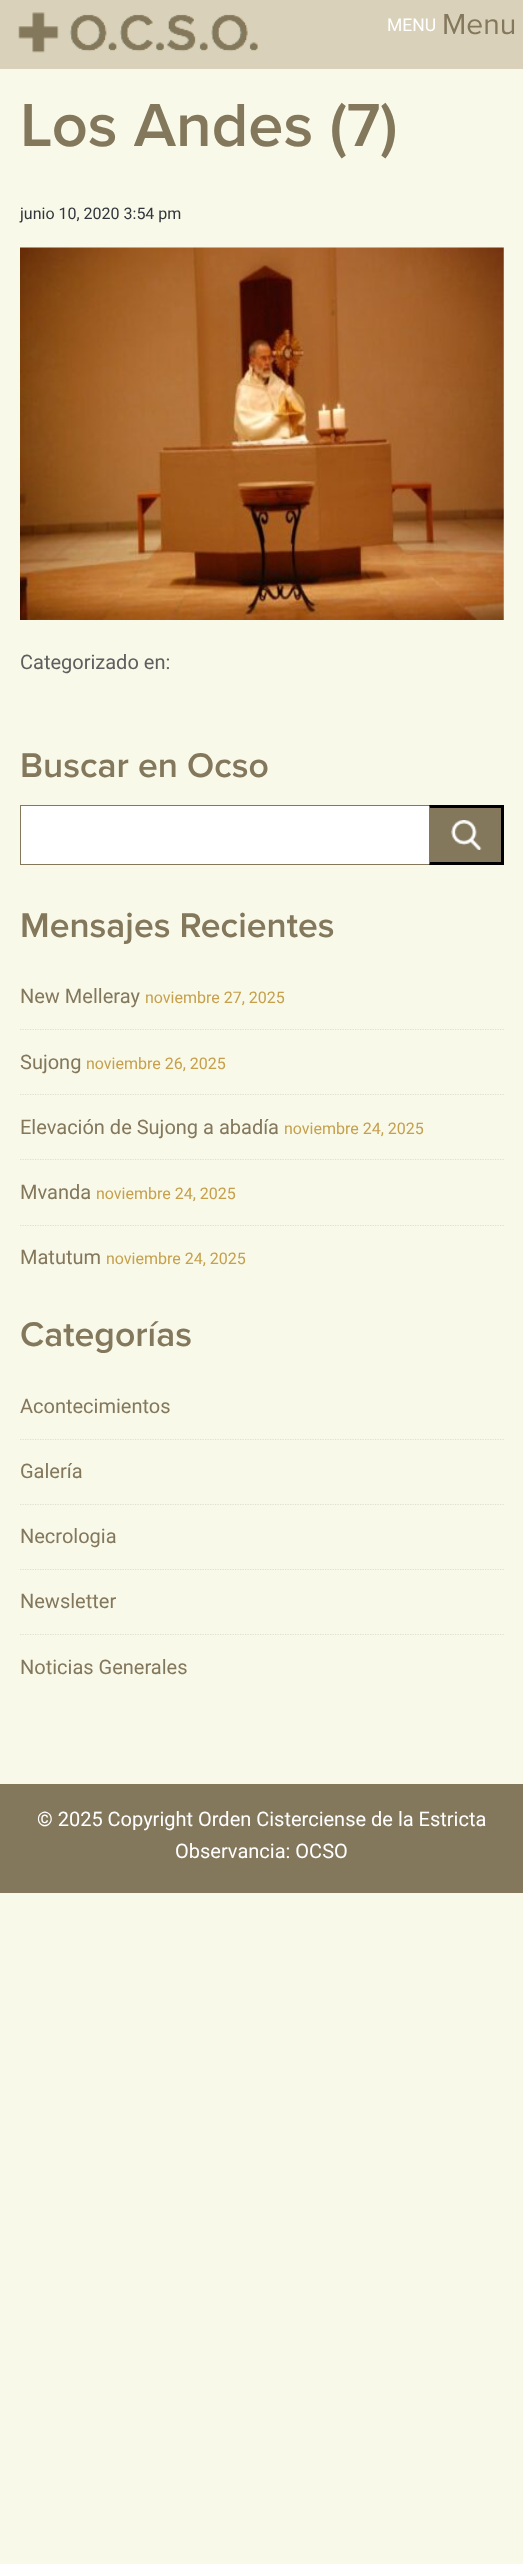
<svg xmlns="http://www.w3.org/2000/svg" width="523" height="2564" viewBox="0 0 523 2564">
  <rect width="100%" height="100%" fill="#f8f9e9"/>
  <rect x="0" y="0" width="523" height="69" fill="#d9d1ba"/>
  <image x="18" y="12" width="240" height="41" href="img1.png"/>
  <text x="387" y="31" font-family="Roboto" font-size="17.5" fill="#ffffff">MENU</text>
  <text x="442" y="34" font-family="Proxima Nova" font-size="30" fill="#83775c">Menu</text>
  <text x="20" y="146" font-family="Proxima Nova" font-size="63" font-weight="600" fill="#83775c">Los Andes (7)</text>
  <text x="20" y="219" font-family="Roboto" font-size="16" fill="#31363c">junio 10, 2020 3:54 pm</text>
  <image x="20" y="247" width="484" height="373" href="img2.png"/>
  <text x="20" y="669" font-family="Roboto" font-size="20" fill="#5e5e5e">Categorizado en:</text>
  <text x="20" y="777" font-family="Proxima Nova" font-size="35.5" font-weight="600" fill="#83775c">Buscar en Ocso</text>
  <rect x="21" y="806" width="408" height="58" fill="#ffffff"/>
  <rect x="20.5" y="805.5" width="483" height="59" fill="none" stroke="#83775c"/>
  <rect x="429" y="806" width="72" height="58" fill="#83775c"/>
  <path d="M429 805H504L501 808H430Z" fill="#000000"/>
  <rect x="501" y="805" width="3" height="60" fill="#000000"/>
  <path d="M504 865H429L430 862H501Z" fill="#000000"/>
  <path d="M429 865V805L430 808V862Z" fill="#83775c"/>
  <image x="451" y="820" width="31" height="30" href="img3.png"/>
  <text x="20" y="937" font-family="Proxima Nova" font-size="35.5" font-weight="600" fill="#83775c">Mensajes Recientes</text>
  <text x="20" y="1003" font-family="Roboto" font-size="20" fill="#83775c">New Melleray</text>
  <text x="145" y="1003" font-family="Roboto" font-size="16" fill="#c6a04c">noviembre 27, 2025</text>
  <path d="M20 1029.5H504" fill="none" stroke="#dfe0d2" stroke-width="1.2" stroke-dasharray="1.25 1.25"/>
  <text x="20" y="1069" font-family="Roboto" font-size="20" fill="#83775c">Sujong</text>
  <text x="86" y="1069" font-family="Roboto" font-size="16" fill="#c6a04c">noviembre 26, 2025</text>
  <path d="M20 1094.5H504" fill="none" stroke="#dfe0d2" stroke-width="1.2" stroke-dasharray="1.25 1.25"/>
  <text x="20" y="1134" font-family="Roboto" font-size="20" fill="#83775c">Elevación de Sujong a abadía</text>
  <text x="284" y="1134" font-family="Roboto" font-size="16" fill="#c6a04c">noviembre 24, 2025</text>
  <path d="M20 1159.5H504" fill="none" stroke="#dfe0d2" stroke-width="1.2" stroke-dasharray="1.25 1.25"/>
  <text x="20" y="1199" font-family="Roboto" font-size="20" fill="#83775c">Mvanda</text>
  <text x="96" y="1199" font-family="Roboto" font-size="16" fill="#c6a04c">noviembre 24, 2025</text>
  <path d="M20 1225.5H504" fill="none" stroke="#dfe0d2" stroke-width="1.2" stroke-dasharray="1.25 1.25"/>
  <text x="20" y="1264" font-family="Roboto" font-size="20" fill="#83775c">Matutum</text>
  <text x="106" y="1264" font-family="Roboto" font-size="16" fill="#c6a04c">noviembre 24, 2025</text>
  <text x="20" y="1346" font-family="Proxima Nova" font-size="35.5" font-weight="600" fill="#83775c">Categorías</text>
  <text x="20" y="1413" font-family="Roboto" font-size="20" fill="#83775c">Acontecimientos</text>
  <path d="M20 1439.5H504" fill="none" stroke="#dfe0d2" stroke-width="1.2" stroke-dasharray="1.25 1.25"/>
  <text x="20" y="1478" font-family="Roboto" font-size="20" fill="#83775c">Galería</text>
  <path d="M20 1504.5H504" fill="none" stroke="#dfe0d2" stroke-width="1.2" stroke-dasharray="1.25 1.25"/>
  <text x="20" y="1543" font-family="Roboto" font-size="20" fill="#83775c">Necrologia</text>
  <path d="M20 1569.5H504" fill="none" stroke="#dfe0d2" stroke-width="1.2" stroke-dasharray="1.25 1.25"/>
  <text x="20" y="1608" font-family="Roboto" font-size="20" fill="#83775c">Newsletter</text>
  <path d="M20 1634.5H504" fill="none" stroke="#dfe0d2" stroke-width="1.2" stroke-dasharray="1.25 1.25"/>
  <text x="20" y="1674" font-family="Roboto" font-size="20" fill="#83775c">Noticias Generales</text>
  <rect x="0" y="1784" width="523" height="109" fill="#83775c"/>
  <text x="37" y="1826" font-family="Roboto" font-size="20" fill="#ffffff">© 2025 Copyright Orden Cisterciense de la Estricta</text>
  <text x="175" y="1858" font-family="Roboto" font-size="20" fill="#ffffff">Observancia: OCSO</text>
</svg>
